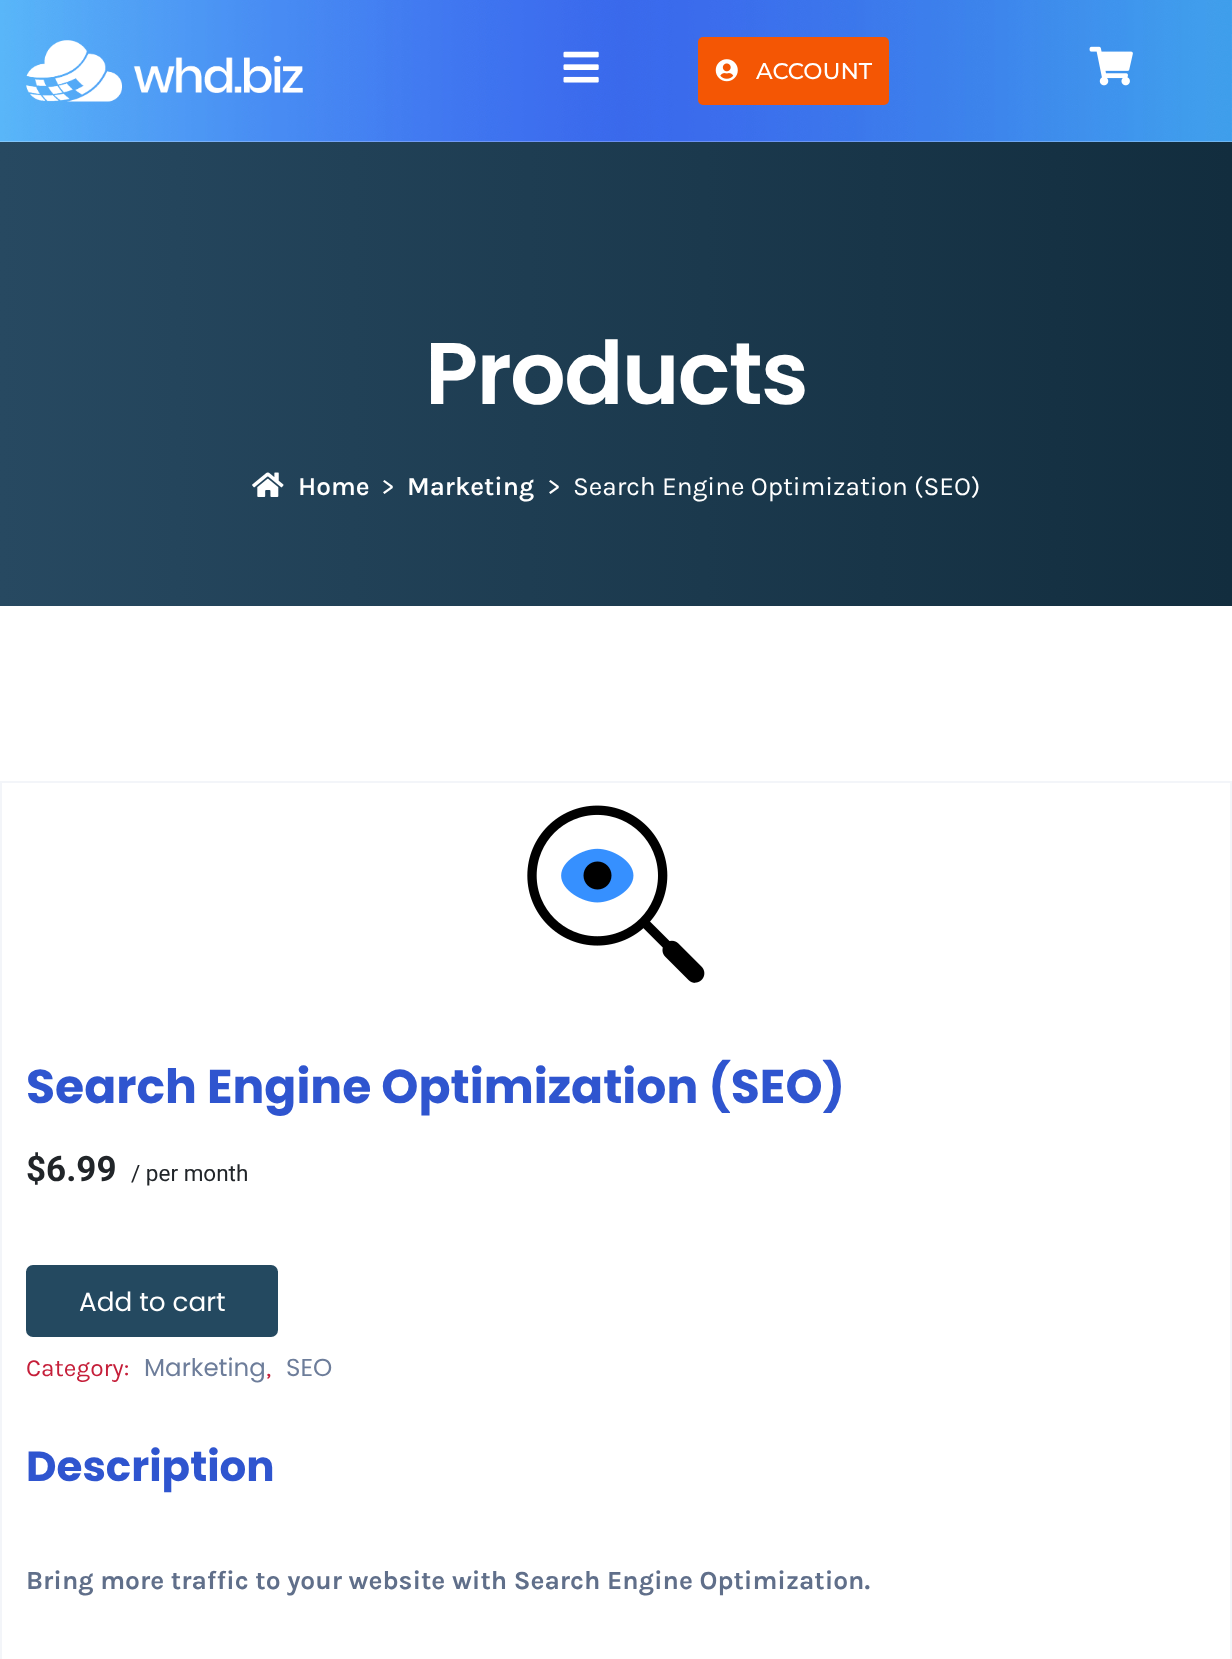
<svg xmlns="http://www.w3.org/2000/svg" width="1232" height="1659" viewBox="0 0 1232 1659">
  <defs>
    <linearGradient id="g1" gradientUnits="userSpaceOnUse" x1="1232" y1="374" x2="0" y2="374"><stop offset="0" stop-color="#122d3e"/><stop offset="1" stop-color="#274961"/></linearGradient>
  </defs>
  <rect width="100%" height="100%" fill="#ffffff"/>
  <image x="0" y="0" width="1232" height="142" href="img1.png"/>
  <image x="26" y="40" width="277" height="62" href="img2.png"/>
  <image x="563" y="51" width="36" height="32" href="img3.png"/>
  <rect x="698" y="37" width="191" height="68" rx="5" fill="#f45604"/>
  <image x="715" y="59" width="23" height="23" href="img4.png"/>
  <text x="756" y="79" font-family="Montserrat" font-size="22.75" font-weight="500" fill="#ffffff">ACCOUNT</text>
  <image x="1089" y="46" width="44" height="40" href="img5.png"/>
  <rect x="0" y="142" width="1232" height="464" fill="url(#g1)"/>
  <text x="425" y="404" font-family="Poppins" font-size="87.5" font-weight="600" letter-spacing="-1.75" fill="#ffffff">Products</text>
  <image x="252" y="472" width="32" height="25" href="img6.png"/>
  <text x="298" y="495" font-family="Karla" font-size="26.25" font-weight="600" fill="#ffffff">Home</text>
  <text x="381" y="495" font-family="Karla" font-size="26.25" fill="#ffffff">&gt;</text>
  <text x="407" y="495" font-family="Karla" font-size="26.25" font-weight="600" fill="#ffffff">Marketing</text>
  <text x="547" y="495" font-family="Karla" font-size="26.25" fill="#ffffff">&gt;</text>
  <text x="573" y="495" font-family="Karla" font-size="26.25" fill="#ffffff">Search Engine Optimization (SEO)</text>
  <rect x="1" y="782" width="1230" height="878" fill="none" stroke="#f3f5f9" stroke-width="2"/>
  <image x="527" y="805" width="178" height="178" href="img7.png"/>
  <text x="26" y="1103" font-family="Poppins" font-size="47.25" font-weight="bold" fill="#2f55cf">Search Engine Optimization (SEO)</text>
  <text x="26" y="1181" font-family="Roboto" font-size="35" font-weight="bold" fill="#212529">$6.99</text>
  <text x="131" y="1181" font-family="Roboto" font-size="22.5" fill="#212529">/ per month</text>
  <rect x="26" y="1265" width="252" height="72" rx="7" fill="#244960"/>
  <text x="79" y="1311" font-family="Poppins" font-size="26.25" fill="#ffffff">Add to cart</text>
  <text x="26" y="1376" font-family="Karla" font-size="24.5" fill="#c51e39">Category:</text>
  <text x="144" y="1376" font-family="Poppins" font-size="24.5" fill="#6d7d9a">Marketing</text>
  <text x="266" y="1376" font-family="Karla" font-size="24.5" fill="#c51e39">,</text>
  <text x="286" y="1376" font-family="Poppins" font-size="24.5" fill="#6d7d9a">SEO</text>
  <text x="26" y="1481" font-family="Poppins" font-size="42" font-weight="bold" fill="#2f55cf">Description</text>
  <text x="26" y="1589" font-family="Karla" font-size="26.25" font-weight="bold" fill="#606f8a">Bring more traffic to your website with Search Engine Optimization.</text>
</svg>
